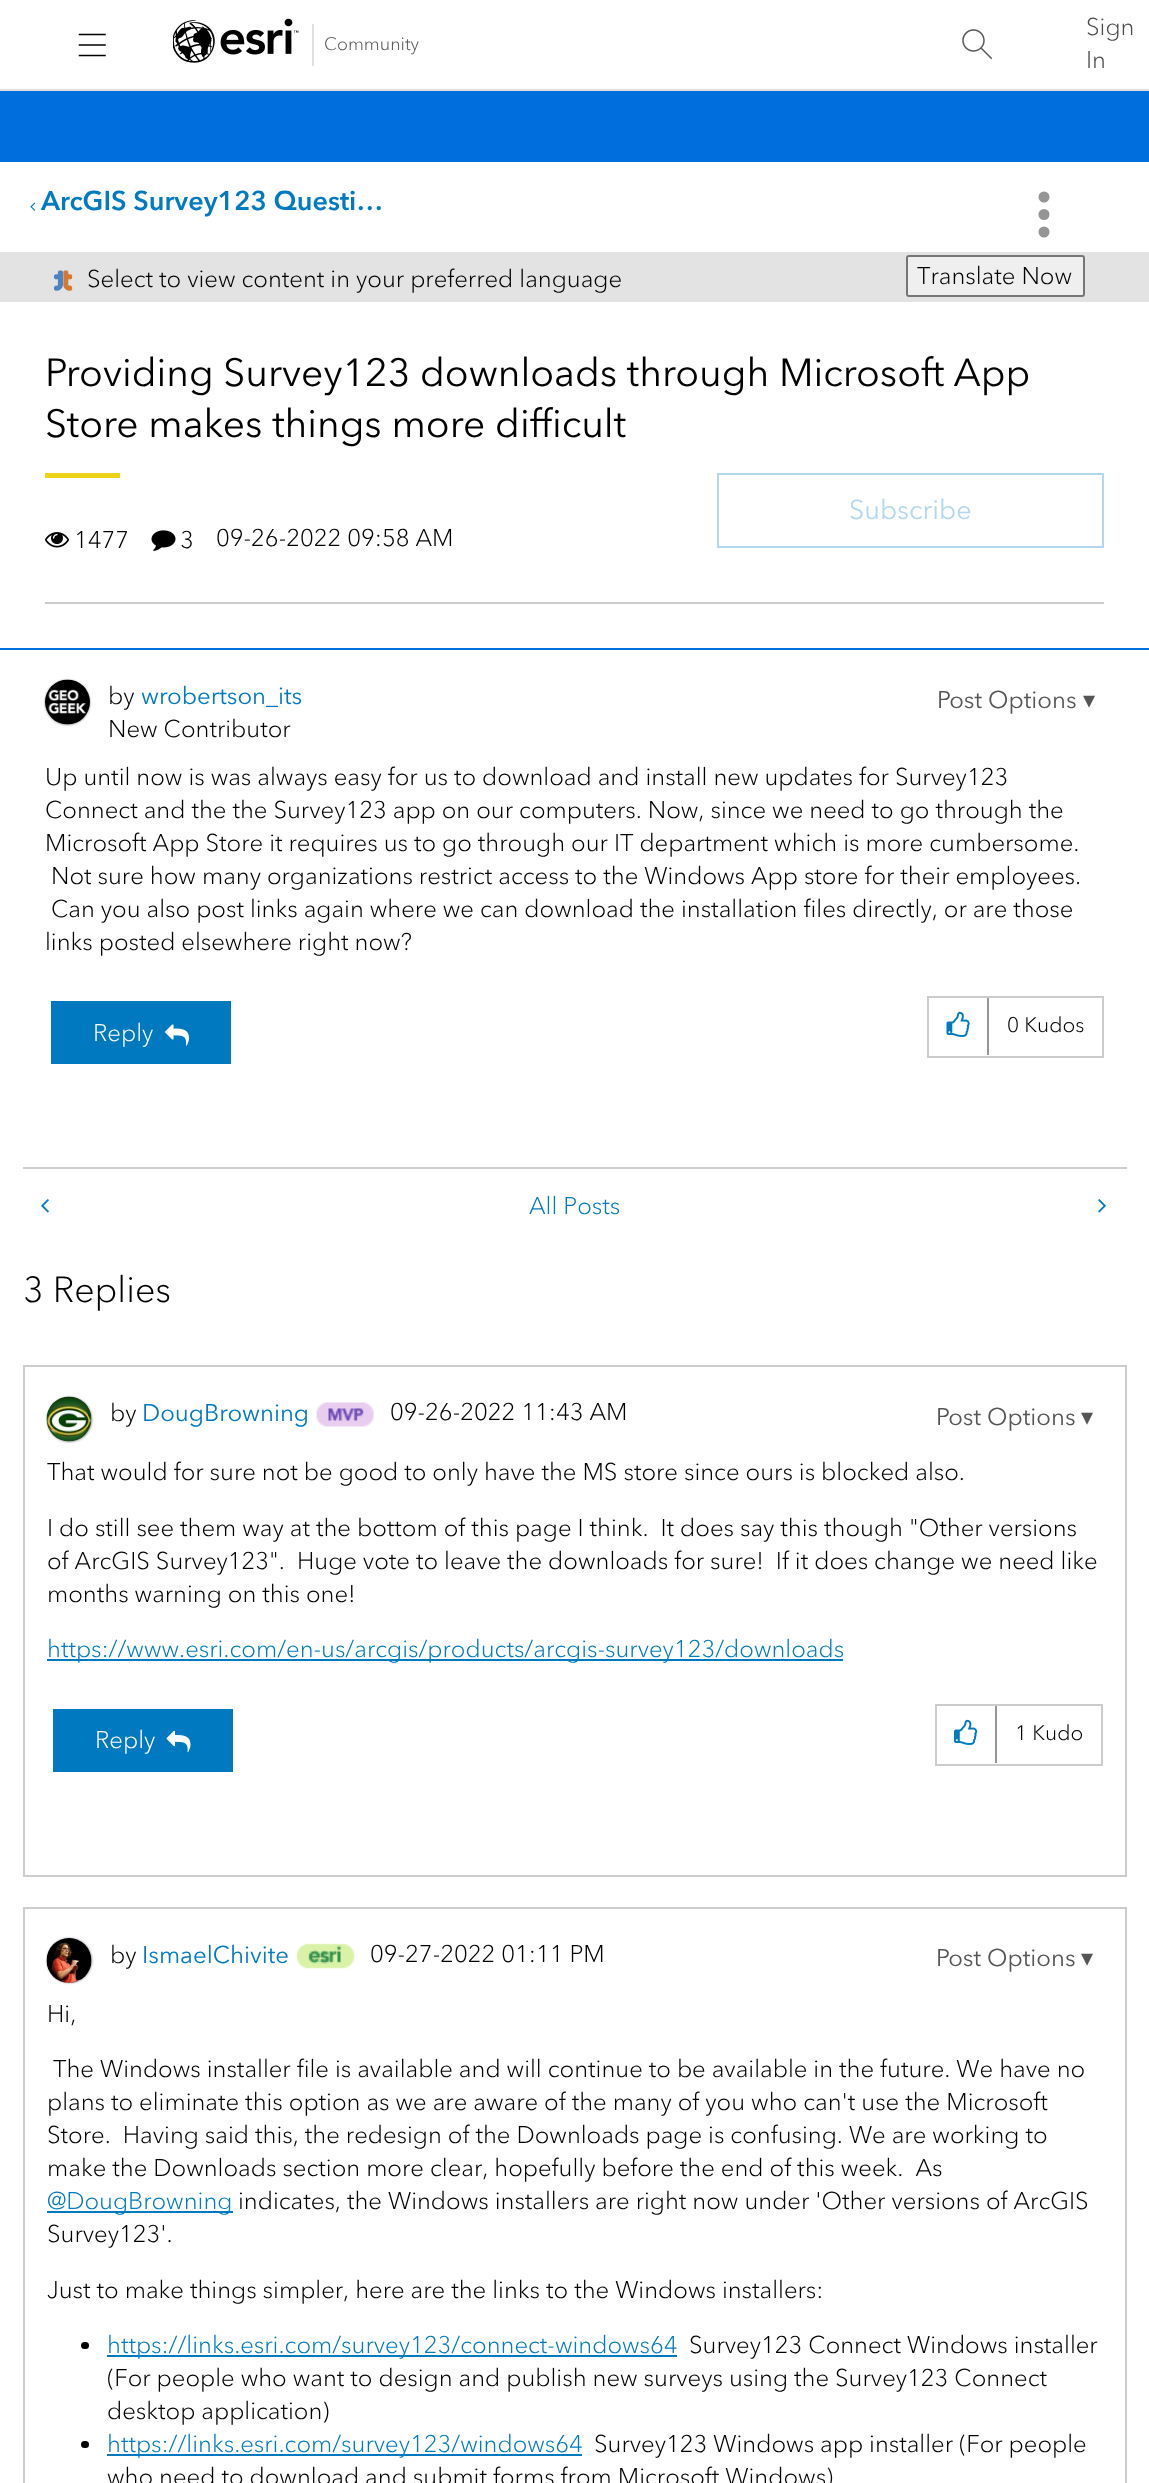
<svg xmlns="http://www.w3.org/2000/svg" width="1149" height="2483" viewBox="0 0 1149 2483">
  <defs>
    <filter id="blur1" x="-50%" y="-200%" width="200%" height="500%"><feGaussianBlur stdDeviation="1"/></filter>
  </defs>
  <rect width="100%" height="100%" fill="#006fde"/>
  <rect x="0" y="0" width="1149" height="89" fill="#ffffff"/>
  <rect x="0" y="89" width="1149" height="2" fill="#e0e0e0"/>
  <image x="78" y="33" width="28" height="24" href="img1.png"/>
  <image x="173" y="18" width="126" height="45" href="img2.png"/>
  <rect x="312" y="24" width="2" height="42" fill="#e0e0e0"/>
  <text x="324" y="50" font-family="Avenir Next" font-size="18" font-weight="300" fill="#555555">Community</text>
  <image x="962" y="29" width="31" height="31" href="img3.png"/>
  <text x="1086" y="35" font-family="Avenir Next" font-size="24" font-weight="300" fill="#4c4c4c">Sign</text>
  <text x="1086" y="68" font-family="Avenir Next" font-size="24" font-weight="300" fill="#4c4c4c">In</text>
  <rect x="0" y="162" width="1149" height="90" fill="#ffffff"/>
  <image x="30" y="202" width="6" height="9" href="img4.png"/>
  <text x="41" y="210" font-family="Avenir Next" font-size="27" font-weight="bold" fill="#007ac2">ArcGIS Survey123 Questi…</text>
  <circle cx="1044" cy="197" r="5.5" fill="#959595"/>
  <circle cx="1044" cy="214.5" r="5.5" fill="#959595"/>
  <circle cx="1044" cy="232" r="5.5" fill="#959595"/>
  <rect x="0" y="252" width="1149" height="50" fill="#e3e3e3"/>
  <image x="53" y="270" width="20" height="21" href="img5.png"/>
  <text x="87" y="287" font-family="Avenir Next" font-size="24" font-weight="300" fill="#000000">Select to view content in your preferred language</text>
  <rect x="907" y="256" width="177" height="40" rx="2" fill="#efefef" stroke="#767676" stroke-width="2"/>
  <text x="917" y="284" font-family="Avenir Next" font-size="24" font-weight="300" fill="#000000">Translate Now</text>
  <rect x="0" y="302" width="1149" height="346" fill="#ffffff"/>
  <text x="45" y="386" font-family="Avenir Next" font-size="39" fill="#000000">Providing Survey123 downloads through Microsoft App</text>
  <text x="45" y="437" font-family="Avenir Next" font-size="39" fill="#000000">Store makes things more difficult</text>
  <rect x="45" y="473" width="75" height="5" fill="#edd317"/>
  <rect x="718" y="474" width="385" height="73" fill="none" stroke="#b3d7ed" stroke-width="2"/>
  <text x="849" y="519" font-family="Avenir Next" font-size="27" fill="#b3d7ed">Subscribe</text>
  <image x="45" y="532" width="24" height="16" href="img6.png"/>
  <text x="74" y="548" font-family="Avenir Next" font-size="24" font-weight="300" fill="#000000">1477</text>
  <image x="151" y="530" width="25" height="21" href="img7.png"/>
  <text x="180" y="548" font-family="Avenir Next" font-size="24" font-weight="300" fill="#000000">3</text>
  <text x="216" y="546" font-family="Avenir Next" font-size="24" font-weight="300" fill="#000000">09-26-2022 09:58 AM</text>
  <rect x="45" y="602" width="1059" height="2" fill="#cccccc"/>
  <rect x="0" y="650" width="1149" height="1833" fill="#ffffff"/>
  <rect x="45" y="680" width="45" height="45" rx="22.5" fill="#959595" filter="url(#blur1)"/>
  <image x="45" y="679" width="45" height="46" href="img8.png"/>
  <text x="108" y="704" font-family="Avenir Next" font-size="24" font-weight="300" fill="#000000">by</text>
  <text x="141" y="704" font-family="Avenir Next" font-size="24" fill="#007ac2">wrobertson_its</text>
  <text x="108" y="737" font-family="Avenir Next" font-size="24" font-weight="300" fill="#000000">New Contributor</text>
  <text x="937" y="708" font-family="Avenir Next" font-size="24" fill="#555555">Post Options</text>
  <text x="1083" y="708" font-family="DejaVu Sans" font-size="24" fill="#555555">▾</text>
  <text x="45" y="785" font-family="Avenir Next" font-size="24" font-weight="300" fill="#000000">Up until now is was always easy for us to download and install new updates for Survey123</text>
  <text x="45" y="818" font-family="Avenir Next" font-size="24" font-weight="300" fill="#000000">Connect and the the Survey123 app on our computers. Now, since we need to go through the</text>
  <text x="45" y="851" font-family="Avenir Next" font-size="24" font-weight="300" fill="#000000">Microsoft App Store it requires us to go through our IT department which is more cumbersome.</text>
  <text x="51" y="884" font-family="Avenir Next" font-size="24" font-weight="300" fill="#000000">Not sure how many organizations restrict access to the Windows App store for their employees.</text>
  <text x="51" y="917" font-family="Avenir Next" font-size="24" font-weight="300" fill="#000000">Can you also post links again where we can download the installation files directly, or are those</text>
  <text x="45" y="950" font-family="Avenir Next" font-size="24" font-weight="300" fill="#000000">links posted elsewhere right now?</text>
  <rect x="51" y="1001" width="180" height="63" fill="#0079c1"/>
  <text x="93" y="1041" font-family="Avenir Next" font-size="24" font-weight="300" fill="#ffffff">Reply</text>
  <image x="165" y="1024" width="24" height="22" href="img9.png"/>
  <rect x="928" y="997" width="175" height="60" fill="none" stroke="#cccccc" stroke-width="2"/>
  <image x="946" y="1011" width="24" height="26" href="img10.png"/>
  <rect x="987" y="998" width="2" height="57" fill="#959595"/>
  <text x="1007" y="1032" font-family="Avenir Next" font-size="21" font-weight="300" fill="#000000">0 Kudos</text>
  <rect x="23" y="1167" width="1104" height="2" fill="#cccccc"/>
  <image x="41" y="1199" width="8" height="14" href="img11.png"/>
  <text x="529" y="1214" font-family="Avenir Next" font-size="24" font-weight="300" fill="#007ac2">All Posts</text>
  <image x="1098" y="1199" width="8" height="14" href="img12.png"/>
  <text x="23" y="1302" font-family="Avenir Next" font-size="36" font-weight="300" fill="#000000">3 Replies</text>
  <rect x="24" y="1366" width="1102" height="510" fill="none" stroke="#cccccc" stroke-width="2"/>
  <rect x="47" y="1397" width="45" height="45" rx="22.5" fill="#959595" filter="url(#blur1)"/>
  <image x="46" y="1396" width="46" height="46" href="img13.png"/>
  <text x="110" y="1421" font-family="Avenir Next" font-size="24" font-weight="300" fill="#000000">by</text>
  <text x="142" y="1421" font-family="Avenir Next" font-size="24" fill="#007ac2">DougBrowning</text>
  <image x="316" y="1402" width="58" height="25" href="img14.png"/>
  <text x="390" y="1420" font-family="Avenir Next" font-size="24" font-weight="300" fill="#000000">09-26-2022 11:43 AM</text>
  <text x="936" y="1425" font-family="Avenir Next" font-size="24" fill="#555555">Post Options</text>
  <text x="1081" y="1425" font-family="DejaVu Sans" font-size="24" fill="#555555">▾</text>
  <text x="47" y="1480" font-family="Avenir Next" font-size="24" font-weight="300" fill="#000000">That would for sure not be good to only have the MS store since ours is blocked also.</text>
  <text x="47" y="1536" font-family="Avenir Next" font-size="24" font-weight="300" fill="#000000" xml:space="preserve">I do still see them way at the bottom of this page I think.  It does say this though "Other versions</text>
  <text x="47" y="1569" font-family="Avenir Next" font-size="24" font-weight="300" fill="#000000" xml:space="preserve">of ArcGIS Survey123".  Huge vote to leave the downloads for sure!  If it does change we need like</text>
  <text x="47" y="1602" font-family="Avenir Next" font-size="24" font-weight="300" fill="#000000">months warning on this one!</text>
  <rect x="47" y="1659" width="796" height="2" fill="#0079c1"/>
  <text x="47" y="1657" font-family="Avenir Next" font-size="24" font-weight="300" fill="#007ac2">https://www.esri.com/en-us/arcgis/products/arcgis-survey123/downloads</text>
  <rect x="53" y="1709" width="180" height="63" fill="#0079c1"/>
  <text x="95" y="1748" font-family="Avenir Next" font-size="24" font-weight="300" fill="#ffffff">Reply</text>
  <image x="166" y="1730" width="25" height="23" href="img15.png"/>
  <rect x="936" y="1705" width="166" height="60" fill="none" stroke="#cccccc" stroke-width="2"/>
  <image x="954" y="1719" width="24" height="26" href="img16.png"/>
  <rect x="995" y="1706" width="2" height="57" fill="#959595"/>
  <text x="1015" y="1740" font-family="Avenir Next" font-size="21" font-weight="300" fill="#000000">1 Kudo</text>
  <rect x="24" y="1908" width="1102" height="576" fill="none" stroke="#cccccc" stroke-width="2"/>
  <rect x="47" y="1938" width="45" height="45" rx="22.5" fill="#959595" filter="url(#blur1)"/>
  <image x="46" y="1938" width="46" height="45" href="img17.png"/>
  <text x="110" y="1963" font-family="Avenir Next" font-size="24" font-weight="300" fill="#000000">by</text>
  <text x="142" y="1963" font-family="Avenir Next" font-size="24" fill="#007ac2">IsmaelChivite</text>
  <image x="296" y="1943" width="59" height="26" href="img18.png"/>
  <text x="370" y="1962" font-family="Avenir Next" font-size="24" font-weight="300" fill="#000000">09-27-2022 01:11 PM</text>
  <text x="936" y="1966" font-family="Avenir Next" font-size="24" fill="#555555">Post Options</text>
  <text x="1081" y="1966" font-family="DejaVu Sans" font-size="24" fill="#555555">▾</text>
  <text x="47" y="2022" font-family="Avenir Next" font-size="24" font-weight="300" fill="#000000">Hi,</text>
  <text x="53" y="2077" font-family="Avenir Next" font-size="24" font-weight="300" fill="#000000">The Windows installer file is available and will continue to be available in the future. We have no</text>
  <text x="47" y="2110" font-family="Avenir Next" font-size="24" font-weight="300" fill="#000000">plans to eliminate this option as we are aware of the many of you who can't use the Microsoft</text>
  <text x="47" y="2143" font-family="Avenir Next" font-size="24" font-weight="300" fill="#000000" xml:space="preserve">Store.  Having said this, the redesign of the Downloads page is confusing. We are working to</text>
  <text x="47" y="2176" font-family="Avenir Next" font-size="24" font-weight="300" fill="#000000" xml:space="preserve">make the Downloads section more clear, hopefully before the end of this week.  As</text>
  <rect x="47" y="2211" width="186" height="2" fill="#0079c1"/>
  <text x="47" y="2209" font-family="Avenir Next" font-size="24" font-weight="300" fill="#007ac2">@DougBrowning</text>
  <text x="238" y="2209" font-family="Avenir Next" font-size="24" font-weight="300" fill="#000000">indicates, the Windows installers are right now under 'Other versions of ArcGIS</text>
  <text x="47" y="2242" font-family="Avenir Next" font-size="24" font-weight="300" fill="#000000">Survey123'.</text>
  <text x="47" y="2298" font-family="Avenir Next" font-size="24" font-weight="300" fill="#000000">Just to make things simpler, here are the links to the Windows installers:</text>
  <rect x="81" y="2342" width="8" height="7" rx="3.5" fill="#000000"/>
  <rect x="107" y="2355" width="570" height="2" fill="#0079c1"/>
  <text x="107" y="2353" font-family="Avenir Next" font-size="24" font-weight="300" fill="#007ac2">https://links.esri.com/survey123/connect-windows64</text>
  <text x="689" y="2353" font-family="Avenir Next" font-size="24" font-weight="300" fill="#000000">Survey123 Connect Windows installer</text>
  <text x="107" y="2386" font-family="Avenir Next" font-size="24" font-weight="300" fill="#000000">(For people who want to design and publish new surveys using the Survey123 Connect</text>
  <text x="107" y="2419" font-family="Avenir Next" font-size="24" font-weight="300" fill="#000000">desktop application)</text>
  <rect x="81" y="2441" width="8" height="7" rx="3.5" fill="#000000"/>
  <rect x="107" y="2454" width="475" height="2" fill="#0079c1"/>
  <text x="107" y="2452" font-family="Avenir Next" font-size="24" font-weight="300" fill="#007ac2">https://links.esri.com/survey123/windows64</text>
  <text x="594" y="2452" font-family="Avenir Next" font-size="24" font-weight="300" fill="#000000">Survey123 Windows app installer (For people</text>
  <text x="107" y="2485" font-family="Avenir Next" font-size="24" font-weight="300" fill="#000000">who need to download and submit forms from Microsoft Windows)</text>
</svg>
